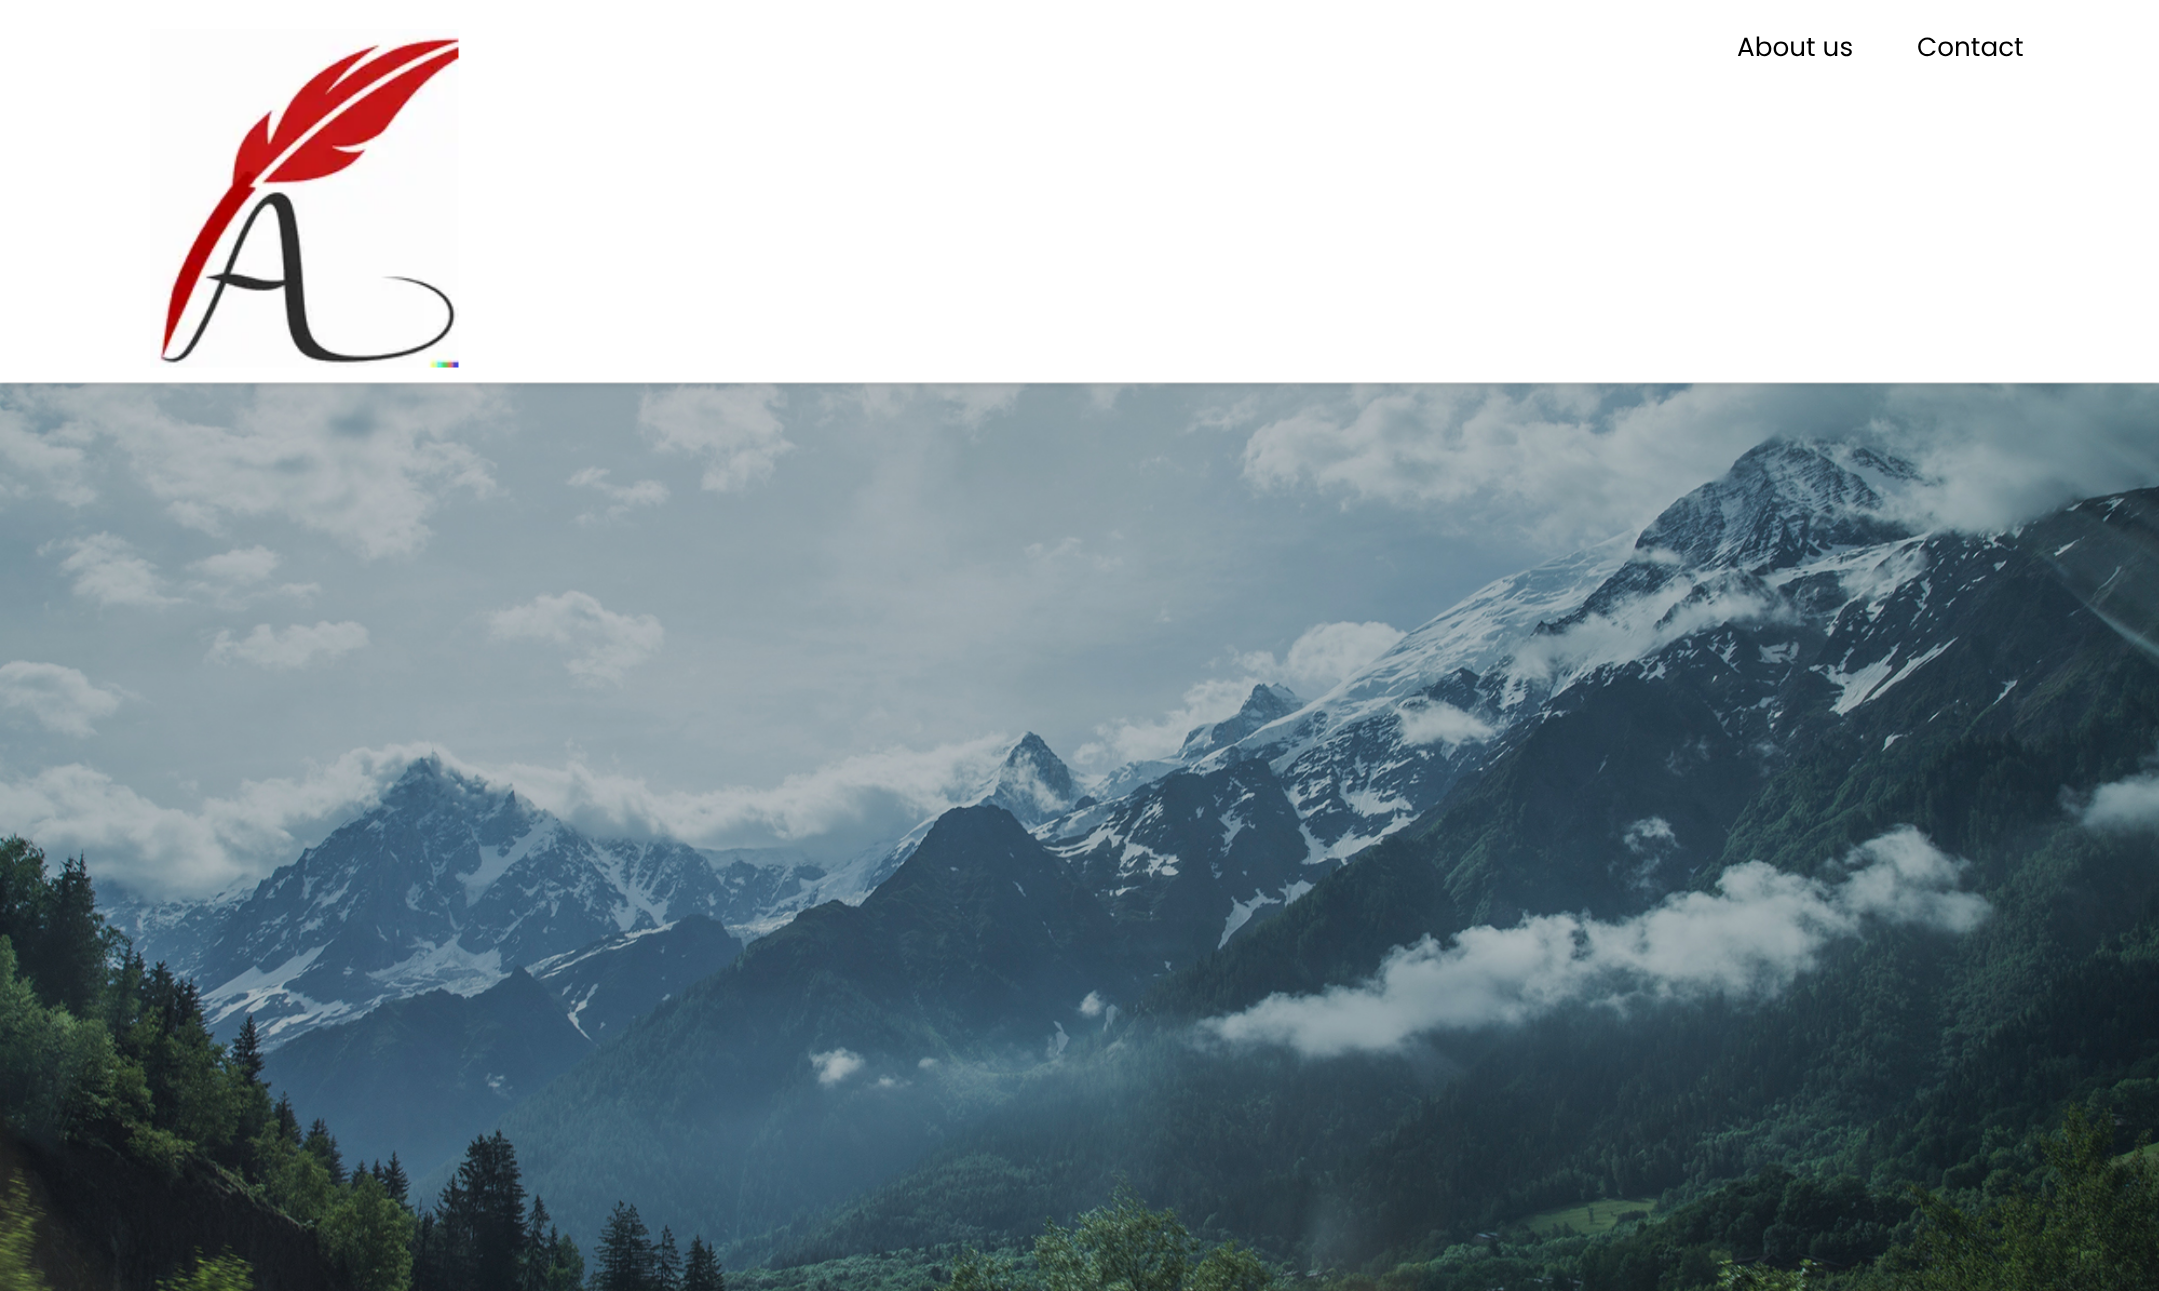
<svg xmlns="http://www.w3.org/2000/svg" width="2159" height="1291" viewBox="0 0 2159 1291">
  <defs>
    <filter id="blur1" x="-50%" y="-200%" width="200%" height="500%"><feGaussianBlur stdDeviation="3.5"/></filter>
  </defs>
  <rect width="100%" height="100%" fill="#eeeeee"/>
  <image x="0" y="383" width="2159" height="908" href="img2.png"/>
  <rect x="0" y="4" width="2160" height="381" fill="#000000" fill-opacity="0.1" filter="url(#blur1)"/>
  <rect x="0" y="0" width="2159" height="382" fill="#ffffff"/>
  <image x="150" y="29" width="309" height="339" href="img1.png"/>
  <text x="1737" y="56" font-family="Poppins" font-size="26.25" fill="#000000">About us</text>
  <text x="1917" y="56" font-family="Poppins" font-size="26.25" fill="#000000">Contact</text>
</svg>
